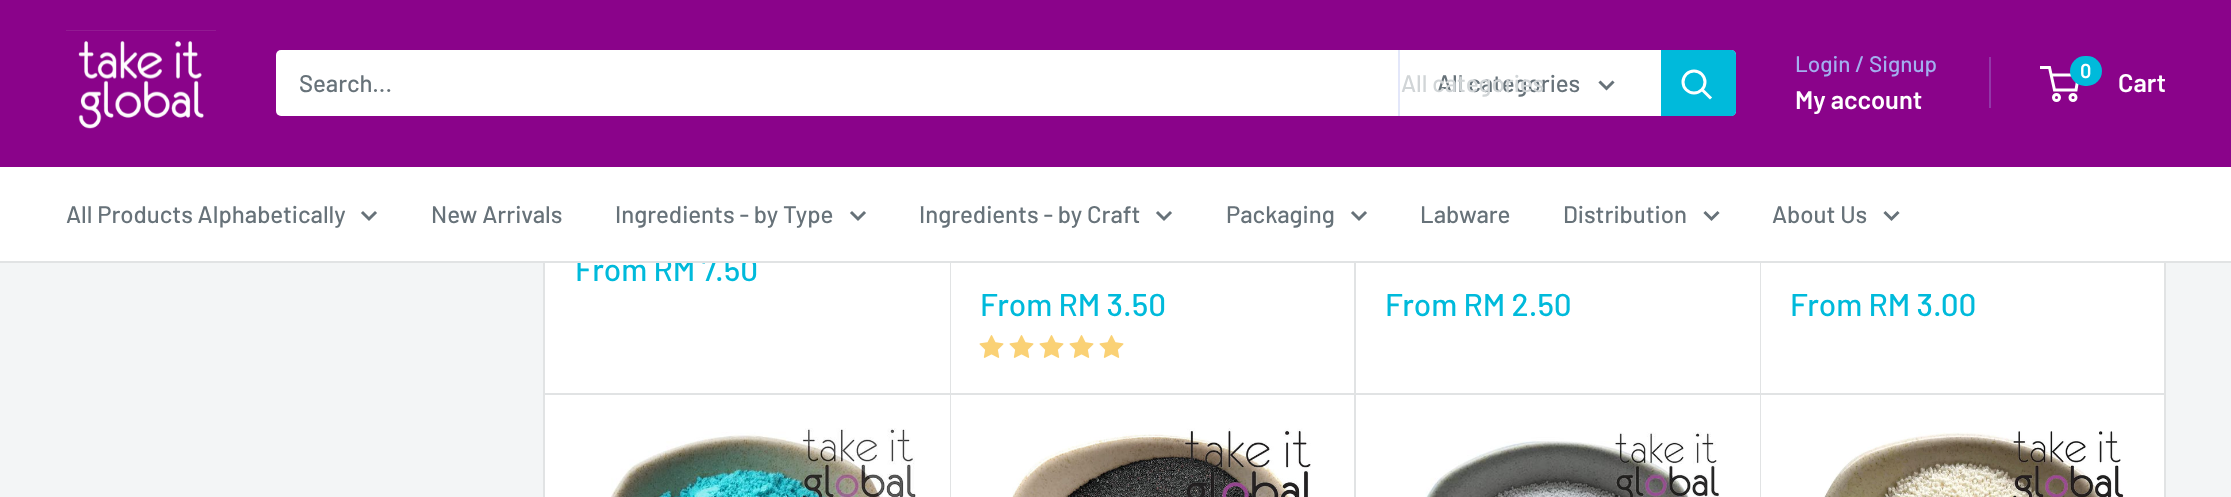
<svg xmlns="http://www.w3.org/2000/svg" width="2231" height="497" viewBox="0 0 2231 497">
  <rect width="100%" height="100%" fill="#f3f5f6"/>
  <rect x="544" y="-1" width="1621" height="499" fill="none" stroke="#e1e3e4" stroke-width="2"/>
  <rect x="545" y="263" width="1619" height="234" fill="#ffffff"/>
  <rect x="950" y="263" width="1" height="130" fill="#e1e3e4"/>
  <text x="980" y="316" font-family="Barlow" font-size="31.5" font-weight="500" fill="#00badb">From RM 3.50</text>
  <image x="979" y="335" width="25" height="23" href="img2.png"/>
  <image x="1009" y="335" width="25" height="23" href="img2.png"/>
  <image x="1039" y="335" width="25" height="23" href="img2.png"/>
  <image x="1069" y="335" width="25" height="23" href="img2.png"/>
  <image x="1099" y="335" width="25" height="23" href="img2.png"/>
  <path d="M950 393V395H1355V-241H1354V393Z" fill="#e1e3e4"/>
  <rect x="1760" y="263" width="1" height="130" fill="#e1e3e4"/>
  <text x="1790" y="316" font-family="Barlow" font-size="31.5" font-weight="500" fill="#00badb">From RM 3.00</text>
  <path d="M1760 393V395H2165V-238L2164-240V393Z" fill="#e1e3e4"/>
  <rect x="0" y="0" width="2231" height="167" fill="#8a038a"/>
  <image x="66" y="30" width="150" height="99" href="img1.png"/>
  <rect x="276" y="50" width="1460" height="66" rx="5" fill="#ffffff"/>
  <text x="299" y="92" font-family="Barlow" font-size="24" font-weight="500" fill="#677279">Search...</text>
  <rect x="1398" y="50" width="2" height="66" fill="#e3e7fa"/>
  <text x="1437" y="92" font-family="Barlow" font-size="24" font-weight="500" fill="#677279">All categories</text>
  <text x="1401" y="92" font-family="Barlow" font-size="24" font-weight="500" fill="#d1d5d7">All categories</text>
  <path d="M1612.5 82.5L1606.5 88.5L1600.5 82.5" fill="none" stroke="#677279" stroke-width="3" stroke-linecap="square"/>
  <path d="M1661 50H1731C1734 50 1736 52 1736 55V111C1736 114 1734 116 1731 116H1661Z" fill="#00badb"/>
  <path d="M1710 97.5L1702.5 90" fill="none" stroke="#ffffff" stroke-width="3" stroke-linecap="square"/>
  <circle cx="1694" cy="82" r="11" fill="none" stroke="#ffffff" stroke-width="3"/>
  <text x="1795" y="72" font-family="Barlow" font-size="22.5" font-weight="500" fill="#a3afef">Login / Signup</text>
  <rect x="1989" y="57" width="2" height="51" fill="#9237a8"/>
  <text x="1795" y="109" font-family="Barlow" font-size="25.5" font-weight="600" fill="#ffffff">My account</text>
  <circle cx="2056.5" cy="97.5" r="3" fill="none" stroke="#ffffff" stroke-width="3"/>
  <circle cx="2073" cy="97.5" r="3" fill="none" stroke="#ffffff" stroke-width="3"/>
  <path d="M2051 75H2078.5L2076 90H2054.5L2049.5 67.5H2040" fill="none" stroke="#ffffff" stroke-width="3"/>
  <rect x="2070" y="56" width="32" height="30" rx="15" fill="#00badb"/>
  <text x="2080" y="78" font-family="Barlow" font-size="20" font-weight="600" fill="#ffffff">0</text>
  <text x="2118" y="92" font-family="Barlow" font-size="25.5" font-weight="600" fill="#ffffff">Cart</text>
  <text x="575" y="281" font-family="Barlow" font-size="31.5" font-weight="500" fill="#00badb">From RM 7.50</text>
  <rect x="0" y="167" width="2231" height="94" fill="#ffffff"/>
  <rect x="0" y="261" width="2231" height="2" fill="#e1e3e4"/>
  <text x="66" y="223" font-family="Barlow" font-size="24" font-weight="500" fill="#677279">All Products Alphabetically</text>
  <path d="M375 213L369 219L363 213" fill="none" stroke="#677279" stroke-width="3" stroke-linecap="square"/>
  <text x="431" y="223" font-family="Barlow" font-size="24" font-weight="500" fill="#677279">New Arrivals</text>
  <text x="615" y="223" font-family="Barlow" font-size="24" font-weight="500" fill="#677279">Ingredients - by Type</text>
  <path d="M864 213L858 219L852 213" fill="none" stroke="#677279" stroke-width="3" stroke-linecap="square"/>
  <text x="919" y="223" font-family="Barlow" font-size="24" font-weight="500" fill="#677279">Ingredients - by Craft</text>
  <path d="M1170 213L1164 219L1158 213" fill="none" stroke="#677279" stroke-width="3" stroke-linecap="square"/>
  <text x="1226" y="223" font-family="Barlow" font-size="24" font-weight="500" fill="#677279">Packaging</text>
  <path d="M1365 213L1359 219L1353 213" fill="none" stroke="#677279" stroke-width="3" stroke-linecap="square"/>
  <text x="1420" y="223" font-family="Barlow" font-size="24" font-weight="500" fill="#677279">Labware</text>
  <text x="1563" y="223" font-family="Barlow" font-size="24" font-weight="500" fill="#677279">Distribution</text>
  <path d="M1717.5 213L1711.5 219L1705.5 213" fill="none" stroke="#677279" stroke-width="3" stroke-linecap="square"/>
  <text x="1772" y="223" font-family="Barlow" font-size="24" font-weight="500" fill="#677279">About Us</text>
  <path d="M1897.5 213L1891.5 219L1885.5 213" fill="none" stroke="#677279" stroke-width="3" stroke-linecap="square"/>
  <path d="M545 393V395H950V-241V393Z" fill="#e1e3e4"/>
  <rect x="1355" y="263" width="1" height="130" fill="#e1e3e4"/>
  <path d="M1355 393V395H1760V-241V393Z" fill="#e1e3e4"/>
  <text x="1385" y="316" font-family="Barlow" font-size="31.5" font-weight="500" fill="#00badb">From RM 2.50</text>
  <image x="611" y="428" width="305" height="69" href="img3.png"/>
  <rect x="950" y="393" width="1" height="104" fill="#e1e3e4"/>
  <image x="1012" y="428" width="299" height="69" href="img4.png"/>
  <rect x="1354" y="393" width="2" height="104" fill="#e1e3e4"/>
  <image x="1425" y="432" width="295" height="65" href="img5.png"/>
  <rect x="1760" y="393" width="1" height="104" fill="#e1e3e4"/>
  <image x="1824" y="431" width="300" height="66" href="img6.png"/>
</svg>
